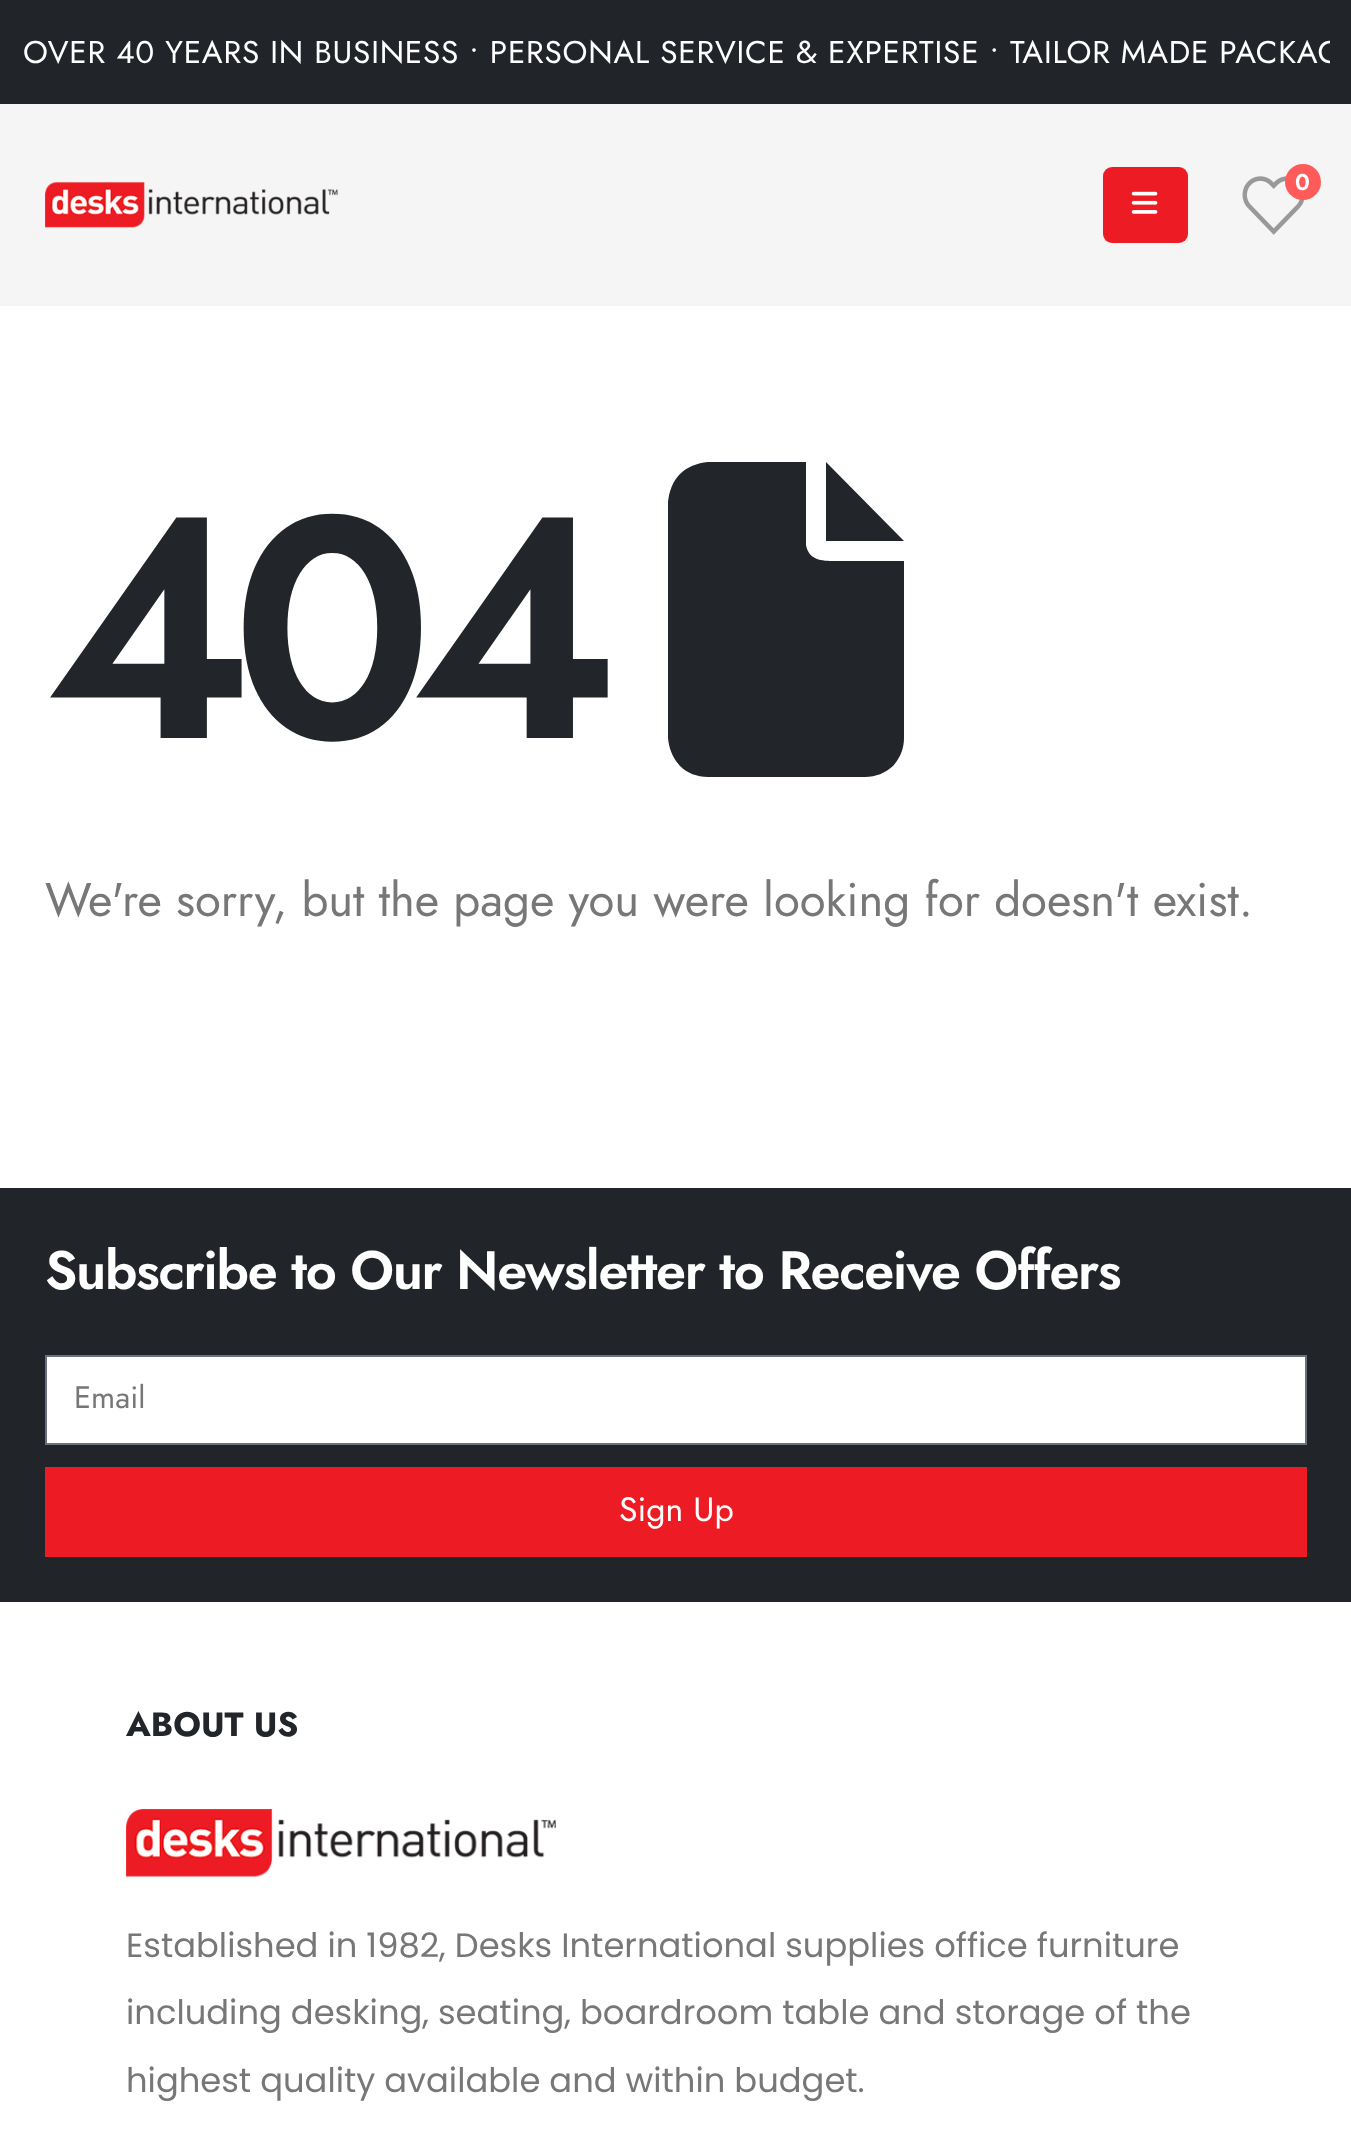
<svg xmlns="http://www.w3.org/2000/svg" width="1351" height="2142" viewBox="0 0 1351 2142">
  <defs>
    <clipPath id="clip1"><rect x="23" y="11" width="1307" height="81"/></clipPath>
  </defs>
  <rect width="100%" height="100%" fill="#ffffff"/>
  <rect x="0" y="0" width="1351" height="104" fill="#212529"/>
  <g clip-path="url(#clip1)">
    <text x="23" y="63" font-family="Jost" font-size="31.5" letter-spacing="0.8" fill="#ffffff">OVER 40 YEARS IN BUSINESS • PERSONAL SERVICE &amp; EXPERTISE • TAILOR MADE PACKAG</text>
  </g>
  <rect x="0" y="104" width="1351" height="202" fill="#f5f5f5"/>
  <image x="45" y="182" width="293" height="46" href="img1.png"/>
  <rect x="1103" y="167" width="85" height="76" rx="9" fill="#ed1c24"/>
  <image x="1131" y="191" width="27" height="23" href="img2.png"/>
  <image x="1242" y="176" width="63" height="59" href="img3.png"/>
  <circle cx="1303" cy="182" r="18" fill="#ff5b5b"/>
  <text x="1295" y="190" font-family="Jost" font-size="23" font-weight="600" fill="#ffffff">0</text>
  <text x="45" y="738" font-family="Jost" font-size="315" font-weight="600" letter-spacing="-22.5" fill="#222529">404</text>
  <path d="M668 502C669 491 673 481 680 474C687 467 697 463 708 462H806V545C809 562 825 561 839 561H904V738C904 749 900 758 893 766C885 773 876 777 865 777H708C697 777 687 773 680 766C673 758 669 749 668 738ZM904 541H826V462Z" fill="#222529"/>
  <text x="45" y="916" font-family="Jost" font-size="47.25" fill="#777777">We're sorry, but the page you were looking for doesn't exist.</text>
  <rect x="0" y="1188" width="1351" height="414" fill="#212529"/>
  <text x="45" y="1289" font-family="Jost" font-size="54" font-weight="600" letter-spacing="-1.35" fill="#ffffff">Subscribe to Our Newsletter to Receive Offers</text>
  <rect x="46" y="1356" width="1260" height="88" fill="#ffffff" stroke="#69727d" stroke-width="2"/>
  <text x="74" y="1408" font-family="Jost" font-size="31" fill="#777777">Email</text>
  <rect x="45" y="1467" width="1262" height="90" fill="#ed1c24"/>
  <text x="619" y="1521" font-family="Jost" font-size="33.75" fill="#ffffff">Sign Up</text>
  <text x="126" y="1736" font-family="Jost" font-size="33.75" font-weight="bold" fill="#222529">ABOUT US</text>
  <image x="126" y="1809" width="430" height="68" href="img4.png"/>
  <text x="126" y="1957" font-family="Poppins" font-size="33.75" fill="#777777">Established in 1982, Desks International supplies office furniture</text>
  <text x="126" y="2024" font-family="Poppins" font-size="33.75" fill="#777777">including desking, seating, boardroom table and storage of the</text>
  <text x="126" y="2092" font-family="Poppins" font-size="33.75" fill="#777777">highest quality available and within budget.</text>
</svg>
